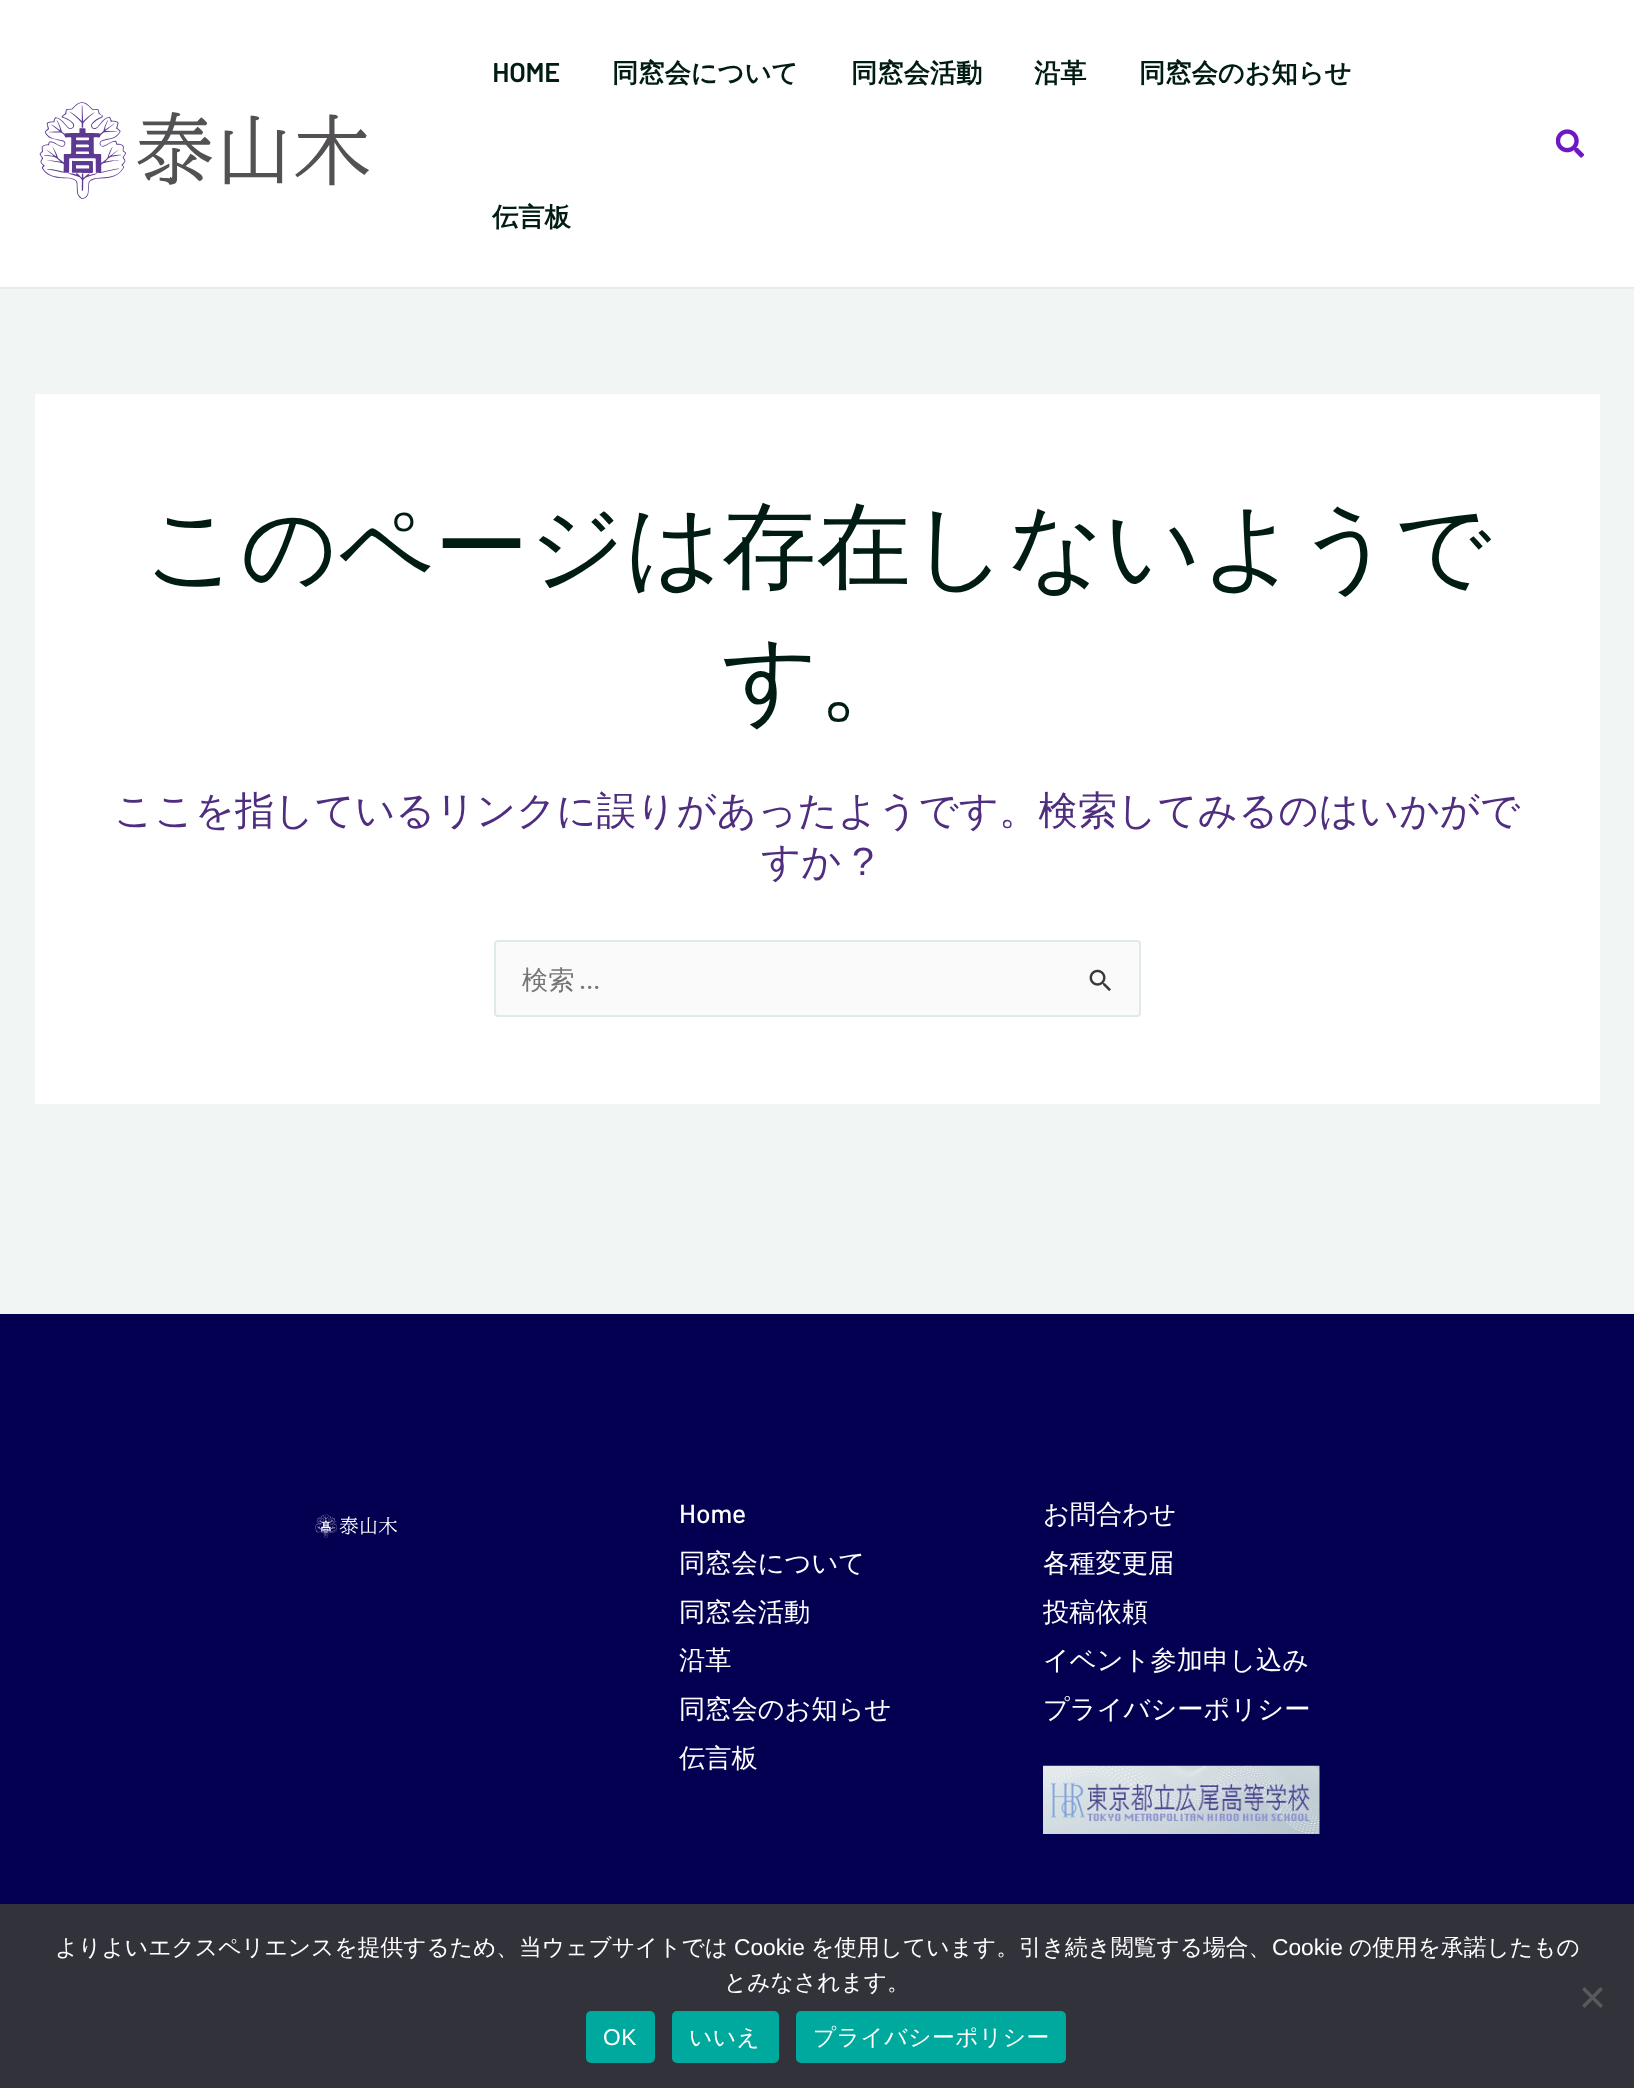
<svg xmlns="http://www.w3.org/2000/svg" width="1634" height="2088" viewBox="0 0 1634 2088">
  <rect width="100%" height="100%" fill="#f1f5f4"/>
  <rect x="0" y="0" width="1634" height="287" fill="#ffffff"/>
  <rect x="0" y="287" width="1634" height="2" fill="#eaeaea"/>
  <image x="39" y="102" width="330" height="97" href="img1.png"/>
  <text x="492" y="82" font-family="Barlow" font-size="26.25" font-weight="bold" fill="#011c14">HOME</text>
  <text x="612" y="82" font-family="WenQuanYi Zen Hei" font-size="26.25" font-weight="bold" fill="#011c14">同窓会について</text>
  <text x="851" y="82" font-family="WenQuanYi Zen Hei" font-size="26.25" font-weight="bold" fill="#011c14">同窓会活動</text>
  <text x="1034" y="82" font-family="WenQuanYi Zen Hei" font-size="26.25" font-weight="bold" fill="#011c14">沿革</text>
  <text x="1139" y="82" font-family="WenQuanYi Zen Hei" font-size="26.25" font-weight="bold" fill="#011c14">同窓会のお知らせ</text>
  <text x="492" y="226" font-family="WenQuanYi Zen Hei" font-size="26.25" font-weight="bold" fill="#011c14">伝言板</text>
  <image x="1556" y="129" width="28" height="29" href="img2.png"/>
  <rect x="35" y="394" width="1565" height="710" fill="#ffffff"/>
  <text x="144" y="579" font-family="WenQuanYi Zen Hei" font-size="94.5" font-weight="500" fill="#011c14">このページは存在しないようで</text>
  <text x="722" y="712" font-family="WenQuanYi Zen Hei" font-size="94.5" font-weight="500" fill="#011c14">す。</text>
  <text x="114" y="824" font-family="WenQuanYi Zen Hei" font-size="39.4" font-weight="500" fill="#4f2d7f">ここを指しているリンクに誤りがあったようです。検索してみるのはいかがで</text>
  <text x="761" y="875" font-family="WenQuanYi Zen Hei" font-size="39.4" font-weight="500" fill="#4f2d7f">すか</text>
  <text x="852" y="875" font-family="Liberation Sans" font-size="39.4" fill="#4f2d7f">?</text>
  <rect x="495" y="941" width="645" height="75" rx="3" fill="#fafafa" stroke="#e0eae8" stroke-width="2"/>
  <text x="522" y="989" font-family="WenQuanYi Zen Hei" font-size="26.25" font-weight="500" fill="#757575">検索</text>
  <text x="579" y="989" font-family="Barlow" font-size="26.25" font-weight="500" fill="#757575">…</text>
  <image x="1089" y="969" width="22" height="23" href="img3.png"/>
  <rect x="0" y="1314" width="1634" height="590" fill="#030052"/>
  <image x="315" y="1514" width="82" height="24" href="img4.png"/>
  <text x="679" y="1523" font-family="Barlow" font-size="26.25" font-weight="500" fill="#ffffff">Home</text>
  <text x="679" y="1572" font-family="WenQuanYi Zen Hei" font-size="26.25" font-weight="500" fill="#ffffff">同窓会について</text>
  <text x="679" y="1621" font-family="WenQuanYi Zen Hei" font-size="26.25" font-weight="500" fill="#ffffff">同窓会活動</text>
  <text x="679" y="1669" font-family="WenQuanYi Zen Hei" font-size="26.25" font-weight="500" fill="#ffffff">沿革</text>
  <text x="679" y="1718" font-family="WenQuanYi Zen Hei" font-size="26.25" font-weight="500" fill="#ffffff">同窓会のお知らせ</text>
  <text x="679" y="1767" font-family="WenQuanYi Zen Hei" font-size="26.25" font-weight="500" fill="#ffffff">伝言板</text>
  <text x="1043" y="1523" font-family="WenQuanYi Zen Hei" font-size="26.25" font-weight="500" fill="#ffffff">お問合わせ</text>
  <text x="1043" y="1572" font-family="WenQuanYi Zen Hei" font-size="26.25" font-weight="500" fill="#ffffff">各種変更届</text>
  <text x="1043" y="1621" font-family="WenQuanYi Zen Hei" font-size="26.25" font-weight="500" fill="#ffffff">投稿依頼</text>
  <text x="1043" y="1669" font-family="WenQuanYi Zen Hei" font-size="26.25" font-weight="500" fill="#ffffff">イベント参加申し込み</text>
  <text x="1043" y="1718" font-family="WenQuanYi Zen Hei" font-size="26.25" font-weight="500" fill="#ffffff">プライバシーポリシー</text>
  <image x="1043" y="1765" width="277" height="69" href="img5.png"/>
  <rect x="0" y="1904" width="1634" height="184" fill="#32323a"/>
  <text x="55" y="1955" font-family="WenQuanYi Zen Hei" font-size="22.75" font-weight="500" fill="#ffffff">よりよいエクスペリエンスを提供するため、当ウェブサイトでは</text>
  <text x="734" y="1955" font-family="Liberation Sans" font-size="22.75" fill="#ffffff">Cookie</text>
  <text x="811" y="1955" font-family="WenQuanYi Zen Hei" font-size="22.75" font-weight="500" fill="#ffffff">を使用しています。引き続き閲覧する場合、</text>
  <text x="1272" y="1955" font-family="Liberation Sans" font-size="22.75" fill="#ffffff">Cookie</text>
  <text x="1349" y="1955" font-family="WenQuanYi Zen Hei" font-size="22.75" font-weight="500" fill="#ffffff">の使用を承諾したもの</text>
  <text x="724" y="1990" font-family="WenQuanYi Zen Hei" font-size="22.75" font-weight="500" fill="#ffffff">とみなされます。</text>
  <path d="M1600.5 1987L1603 1989.5L1584.5 2008L1582 2005.5Z" fill="#59595d"/>
  <path d="M1582 1989.5L1584.5 1987L1603 2005.5L1600.5 2008Z" fill="#59595d"/>
  <rect x="586" y="2011" width="69" height="52" rx="5" fill="#00a99d"/>
  <text x="603" y="2045" font-family="Liberation Sans" font-size="22.75" letter-spacing="0.5" fill="#ffffff">OK</text>
  <rect x="672" y="2011" width="107" height="52" rx="5" fill="#00a99d"/>
  <text x="689" y="2045" font-family="WenQuanYi Zen Hei" font-size="22.75" font-weight="500" letter-spacing="0.5" fill="#ffffff">いいえ</text>
  <rect x="796" y="2011" width="270" height="52" rx="5" fill="#00a99d"/>
  <text x="813" y="2045" font-family="WenQuanYi Zen Hei" font-size="22.75" font-weight="500" letter-spacing="0.5" fill="#ffffff">プライバシーポリシー</text>
</svg>
